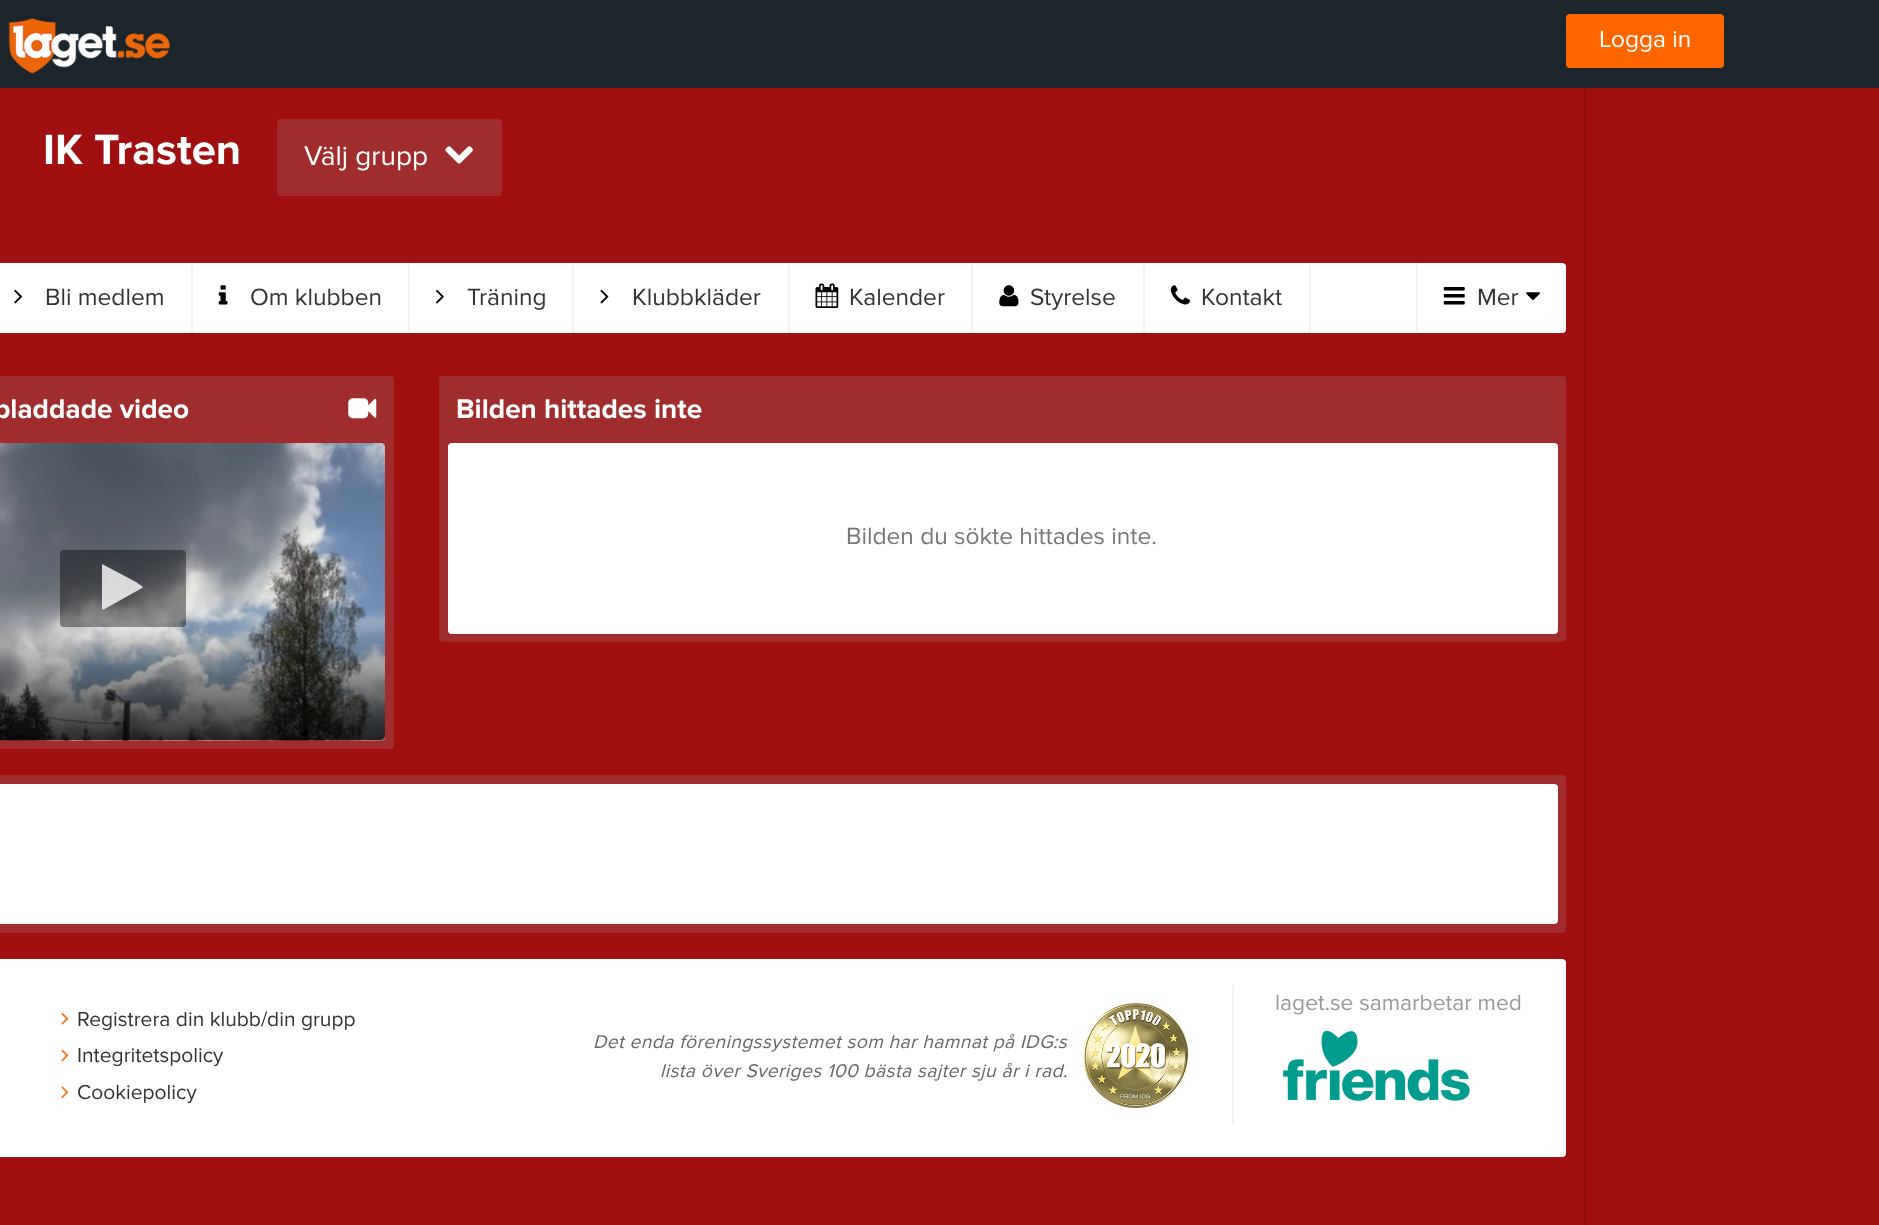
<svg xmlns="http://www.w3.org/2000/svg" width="1879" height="1225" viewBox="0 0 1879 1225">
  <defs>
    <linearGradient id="g1" gradientUnits="userSpaceOnUse" x1="123" y1="590" x2="123" y2="740"><stop offset="0.2" stop-color="#000000" stop-opacity="0"/><stop offset="1" stop-color="#000000" stop-opacity="0.8"/></linearGradient>
  </defs>
  <rect width="100%" height="100%" fill="#a11010"/>
  <rect x="0" y="0" width="1879" height="88" fill="#1c252b"/>
  <image x="8" y="18" width="162" height="56" href="img1.png"/>
  <rect x="1566" y="14" width="158" height="54" rx="4" fill="#ff6600"/>
  <text x="1599" y="47" font-family="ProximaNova" font-size="24.5" fill="#ffffff">Logga in</text>
  <text x="43" y="164" font-family="ProximaNova" font-size="43.75" font-weight="bold" fill="#ffffff">IK Trasten</text>
  <rect x="277" y="119" width="225" height="77" rx="4" fill="#a02c2c"/>
  <text x="304" y="165" font-family="ProximaNova" font-size="28" fill="#ffffff">Välj grupp</text>
  <image x="445" y="146" width="28" height="18" href="img2.png"/>
  <rect x="-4" y="263" width="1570" height="70" rx="4" fill="#ffffff"/>
  <rect x="191" y="263" width="2" height="70" fill="#f3f3f3"/>
  <image x="14" y="289" width="9" height="15" href="img3.png"/>
  <text x="45" y="305" font-family="ProximaNova" font-size="24.5" fill="#333333">Bli medlem</text>
  <rect x="408" y="263" width="2" height="70" fill="#f3f3f3"/>
  <image x="218" y="285" width="10" height="20" href="img4.png"/>
  <text x="250" y="305" font-family="ProximaNova" font-size="24.5" fill="#333333">Om klubben</text>
  <rect x="572" y="263" width="2" height="70" fill="#f3f3f3"/>
  <image x="436" y="289" width="8" height="15" href="img5.png"/>
  <text x="467" y="305" font-family="ProximaNova" font-size="24.5" fill="#333333">Träning</text>
  <rect x="788" y="263" width="2" height="70" fill="#f3f3f3"/>
  <image x="600" y="289" width="9" height="15" href="img6.png"/>
  <text x="632" y="305" font-family="ProximaNova" font-size="24.5" fill="#333333">Klubbkläder</text>
  <rect x="971" y="263" width="2" height="70" fill="#f3f3f3"/>
  <image x="815" y="283" width="24" height="25" href="img7.png"/>
  <text x="849" y="305" font-family="ProximaNova" font-size="24.5" fill="#333333">Kalender</text>
  <rect x="1143" y="263" width="2" height="70" fill="#f3f3f3"/>
  <image x="999" y="285" width="20" height="22" href="img8.png"/>
  <text x="1030" y="305" font-family="ProximaNova" font-size="24.5" fill="#333333">Styrelse</text>
  <rect x="1309" y="263" width="2" height="70" fill="#f3f3f3"/>
  <image x="1170" y="285" width="20" height="20" href="img9.png"/>
  <text x="1201" y="305" font-family="ProximaNova" font-size="24.5" fill="#333333">Kontakt</text>
  <rect x="1416" y="263" width="2" height="70" fill="#f3f3f3"/>
  <image x="1443" y="287" width="22" height="18" href="img10.png"/>
  <text x="1477" y="305" font-family="ProximaNova" font-size="24.5" fill="#333333">Mer</text>
  <image x="1526" y="292" width="14" height="8" href="img11.png"/>
  <rect x="-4" y="376" width="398" height="373" rx="4" fill="#a02c2c"/>
  <text x="-6" y="418" font-family="ProximaNova" font-size="28" font-weight="bold" fill="#ffffff">pladdade video</text>
  <image x="348" y="398" width="29" height="21" href="img12.png"/>
  <image x="0" y="443" width="385" height="298" href="img13.png"/>
  <rect x="60" y="550" width="126" height="77" rx="4" fill="#000000" fill-opacity="0.4"/>
  <path d="M142 588L110 606C109 606 103 611 102 609V565V564L136 582L143 587Z" fill="#ffffff" fill-opacity="0.8"/>
  <path d="M-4 590H385V736C385 738 383 740 381 740H0C-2 740-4 738-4 736Z" fill="url(#g1)"/>
  <rect x="439" y="376" width="1127" height="266" rx="4" fill="#a02c2c"/>
  <text x="456" y="418" font-family="ProximaNova" font-size="28" font-weight="bold" fill="#ffffff">Bilden hittades inte</text>
  <rect x="448" y="443" width="1110" height="191" rx="4" fill="#ffffff"/>
  <text x="846" y="544" font-family="ProximaNova" font-size="24.5" fill="#777777">Bilden du sökte hittades inte.</text>
  <rect x="-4" y="775" width="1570" height="158" rx="4" fill="#a02c2c"/>
  <rect x="-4" y="784" width="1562" height="140" rx="4" fill="#ffffff"/>
  <rect x="-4" y="959" width="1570" height="198" rx="4" fill="#ffffff"/>
  <text x="1275" y="1010" font-family="ProximaNova" font-size="22.75" fill="#999999">laget.se samarbetar med</text>
  <image x="1283" y="1031" width="187" height="70" href="img14.png"/>
  <image x="61" y="1013" width="8" height="12" href="img15.png"/>
  <text x="77" y="1026" font-family="ProximaNova" font-size="21" fill="#333333">Registrera din klubb/din grupp</text>
  <image x="61" y="1049" width="8" height="13" href="img16.png"/>
  <text x="77" y="1062" font-family="ProximaNova" font-size="21" fill="#333333">Integritetspolicy</text>
  <image x="61" y="1086" width="8" height="12" href="img17.png"/>
  <text x="77" y="1099" font-family="ProximaNova" font-size="21" fill="#333333">Cookiepolicy</text>
  <rect x="1232" y="985" width="2" height="140" fill="#f3f3f3"/>
  <text x="593" y="1048" font-family="ProximaNova" font-size="19.25" font-style="italic" letter-spacing="0.4" fill="#666666">Det enda föreningssystemet som har hamnat på IDG:s</text>
  <text x="660" y="1077" font-family="ProximaNova" font-size="19.25" font-style="italic" letter-spacing="0.4" fill="#666666">lista över Sveriges 100 bästa sajter sju år i rad.</text>
  <image x="1083" y="1003" width="106" height="105" href="img18.png"/>
  <rect x="1584" y="88" width="2" height="1137" fill="#910e0e"/>
</svg>
